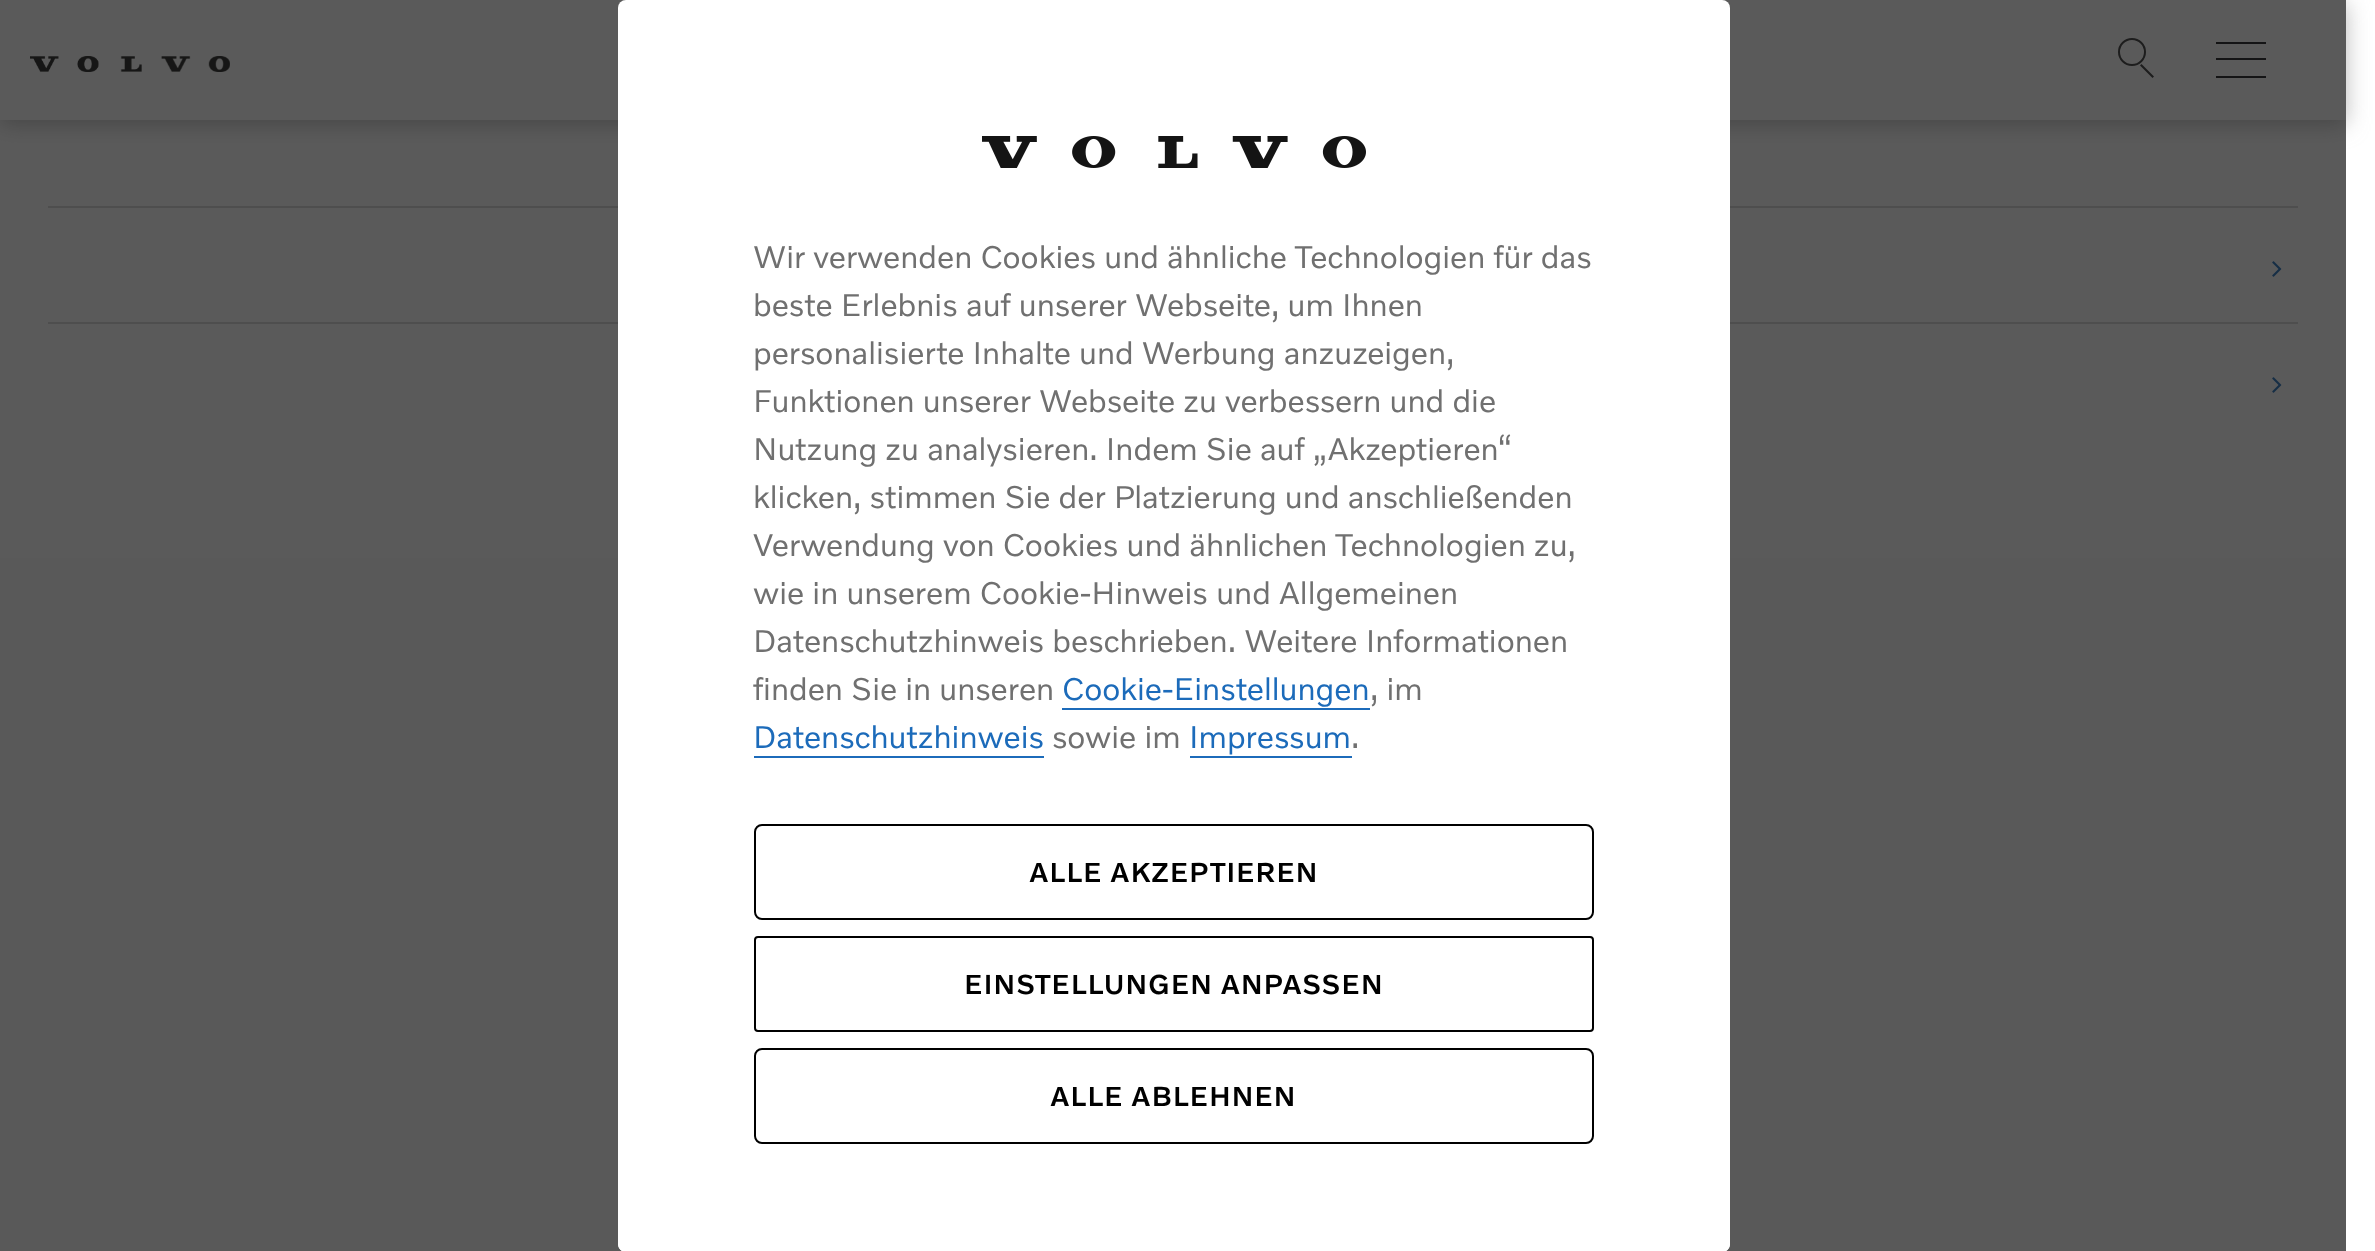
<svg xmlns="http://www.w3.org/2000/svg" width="2375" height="1251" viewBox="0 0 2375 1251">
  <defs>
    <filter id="blur1" x="-50%" y="-200%" width="200%" height="500%"><feGaussianBlur stdDeviation="11"/></filter>
  </defs>
  <rect width="100%" height="100%" fill="#ffffff"/>
  <rect x="0" y="4" width="2346" height="120" fill="#bbbbbb" filter="url(#blur1)"/>
  <rect x="0" y="0" width="2346" height="120" fill="#ffffff"/>
  <image x="30" y="56" width="200" height="16" href="img1.png"/>
  <circle cx="2132" cy="52" r="13" fill="none" stroke="#333333" stroke-width="2"/>
  <path d="M2140 65.5L2141.5 64L2154 76.5L2152.5 78Z" fill="#333333"/>
  <rect x="2216" y="42" width="50" height="2" fill="#161618"/>
  <rect x="2216" y="58" width="50" height="2" fill="#161618"/>
  <rect x="2216" y="76" width="50" height="2" fill="#161618"/>
  <rect x="48" y="206" width="570" height="2" fill="#d5d5d5"/>
  <rect x="48" y="322" width="570" height="2" fill="#d5d5d5"/>
  <rect x="1730" y="206" width="568" height="2" fill="#d5d5d5"/>
  <rect x="1730" y="322" width="568" height="2" fill="#d5d5d5"/>
  <image x="2272" y="261" width="10" height="16" href="img2.png"/>
  <image x="2272" y="377" width="10" height="16" href="img2.png"/>
  <rect x="0" y="558" width="2346" height="693" fill="#fafafa"/>
  <rect x="0" y="0" width="2346" height="1251" fill="#141414" fill-opacity="0.7"/>
  <rect x="618" y="0" width="1112" height="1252" rx="8" fill="#ffffff"/>
  <image x="982" y="136" width="384" height="32" href="img3.png"/>
  <text x="753" y="268" font-family="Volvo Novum" font-size="32" fill="#707070">Wir verwenden Cookies und ähnliche Technologien für das</text>
  <text x="753" y="316" font-family="Volvo Novum" font-size="32" fill="#707070">beste Erlebnis auf unserer Webseite, um Ihnen</text>
  <text x="753" y="364" font-family="Volvo Novum" font-size="32" fill="#707070">personalisierte Inhalte und Werbung anzuzeigen,</text>
  <text x="753" y="412" font-family="Volvo Novum" font-size="32" fill="#707070">Funktionen unserer Webseite zu verbessern und die</text>
  <text x="753" y="460" font-family="Volvo Novum" font-size="32" fill="#707070">Nutzung zu analysieren. Indem Sie auf „Akzeptieren“</text>
  <text x="753" y="508" font-family="Volvo Novum" font-size="32" fill="#707070">klicken, stimmen Sie der Platzierung und anschließenden</text>
  <text x="753" y="556" font-family="Volvo Novum" font-size="32" fill="#707070">Verwendung von Cookies und ähnlichen Technologien zu,</text>
  <text x="753" y="604" font-family="Volvo Novum" font-size="32" fill="#707070">wie in unserem Cookie-Hinweis und Allgemeinen</text>
  <text x="753" y="652" font-family="Volvo Novum" font-size="32" fill="#707070">Datenschutzhinweis beschrieben. Weitere Informationen</text>
  <text x="753" y="700" font-family="Volvo Novum" font-size="32" fill="#707070">finden Sie in unseren</text>
  <text x="1062" y="700" font-family="Volvo Novum" font-size="32" fill="#1c6bba">Cookie-Einstellungen</text>
  <rect x="1062" y="708" width="308" height="2" fill="#1c6bba"/>
  <text x="1370" y="700" font-family="Volvo Novum" font-size="32" fill="#707070">, im</text>
  <text x="753" y="748" font-family="Volvo Novum" font-size="32" fill="#1c6bba">Datenschutzhinweis</text>
  <rect x="754" y="756" width="290" height="2" fill="#1c6bba"/>
  <text x="1052" y="748" font-family="Volvo Novum" font-size="32" fill="#707070">sowie im</text>
  <text x="1189" y="748" font-family="Volvo Novum" font-size="32" fill="#1c6bba">Impressum</text>
  <rect x="1190" y="756" width="162" height="2" fill="#1c6bba"/>
  <text x="1351" y="748" font-family="Volvo Novum" font-size="32" fill="#707070">.</text>
  <path d="M618 824H1722C1726.5 824 1730 827.5 1730 832V1244C1730 1248.5 1726.5 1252 1722 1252H626C621.5 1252 618 1248.5 618 1244Z" fill="#ffffff"/>
  <rect x="755" y="825" width="838" height="94" rx="7" fill="none" stroke="#000000" stroke-width="2"/>
  <text x="1029" y="882" font-family="Volvo Novum" font-size="28" font-weight="500" letter-spacing="0.6" fill="#000000">ALLE AKZEPTIEREN</text>
  <rect x="755" y="937" width="838" height="94" rx="3" fill="none" stroke="#000000" stroke-width="2"/>
  <text x="964" y="994" font-family="Volvo Novum" font-size="28" font-weight="500" letter-spacing="0.6" fill="#000000">EINSTELLUNGEN ANPASSEN</text>
  <rect x="755" y="1049" width="838" height="94" rx="7" fill="none" stroke="#000000" stroke-width="2"/>
  <text x="1050" y="1106" font-family="Volvo Novum" font-size="28" font-weight="500" letter-spacing="0.6" fill="#000000">ALLE ABLEHNEN</text>
</svg>
